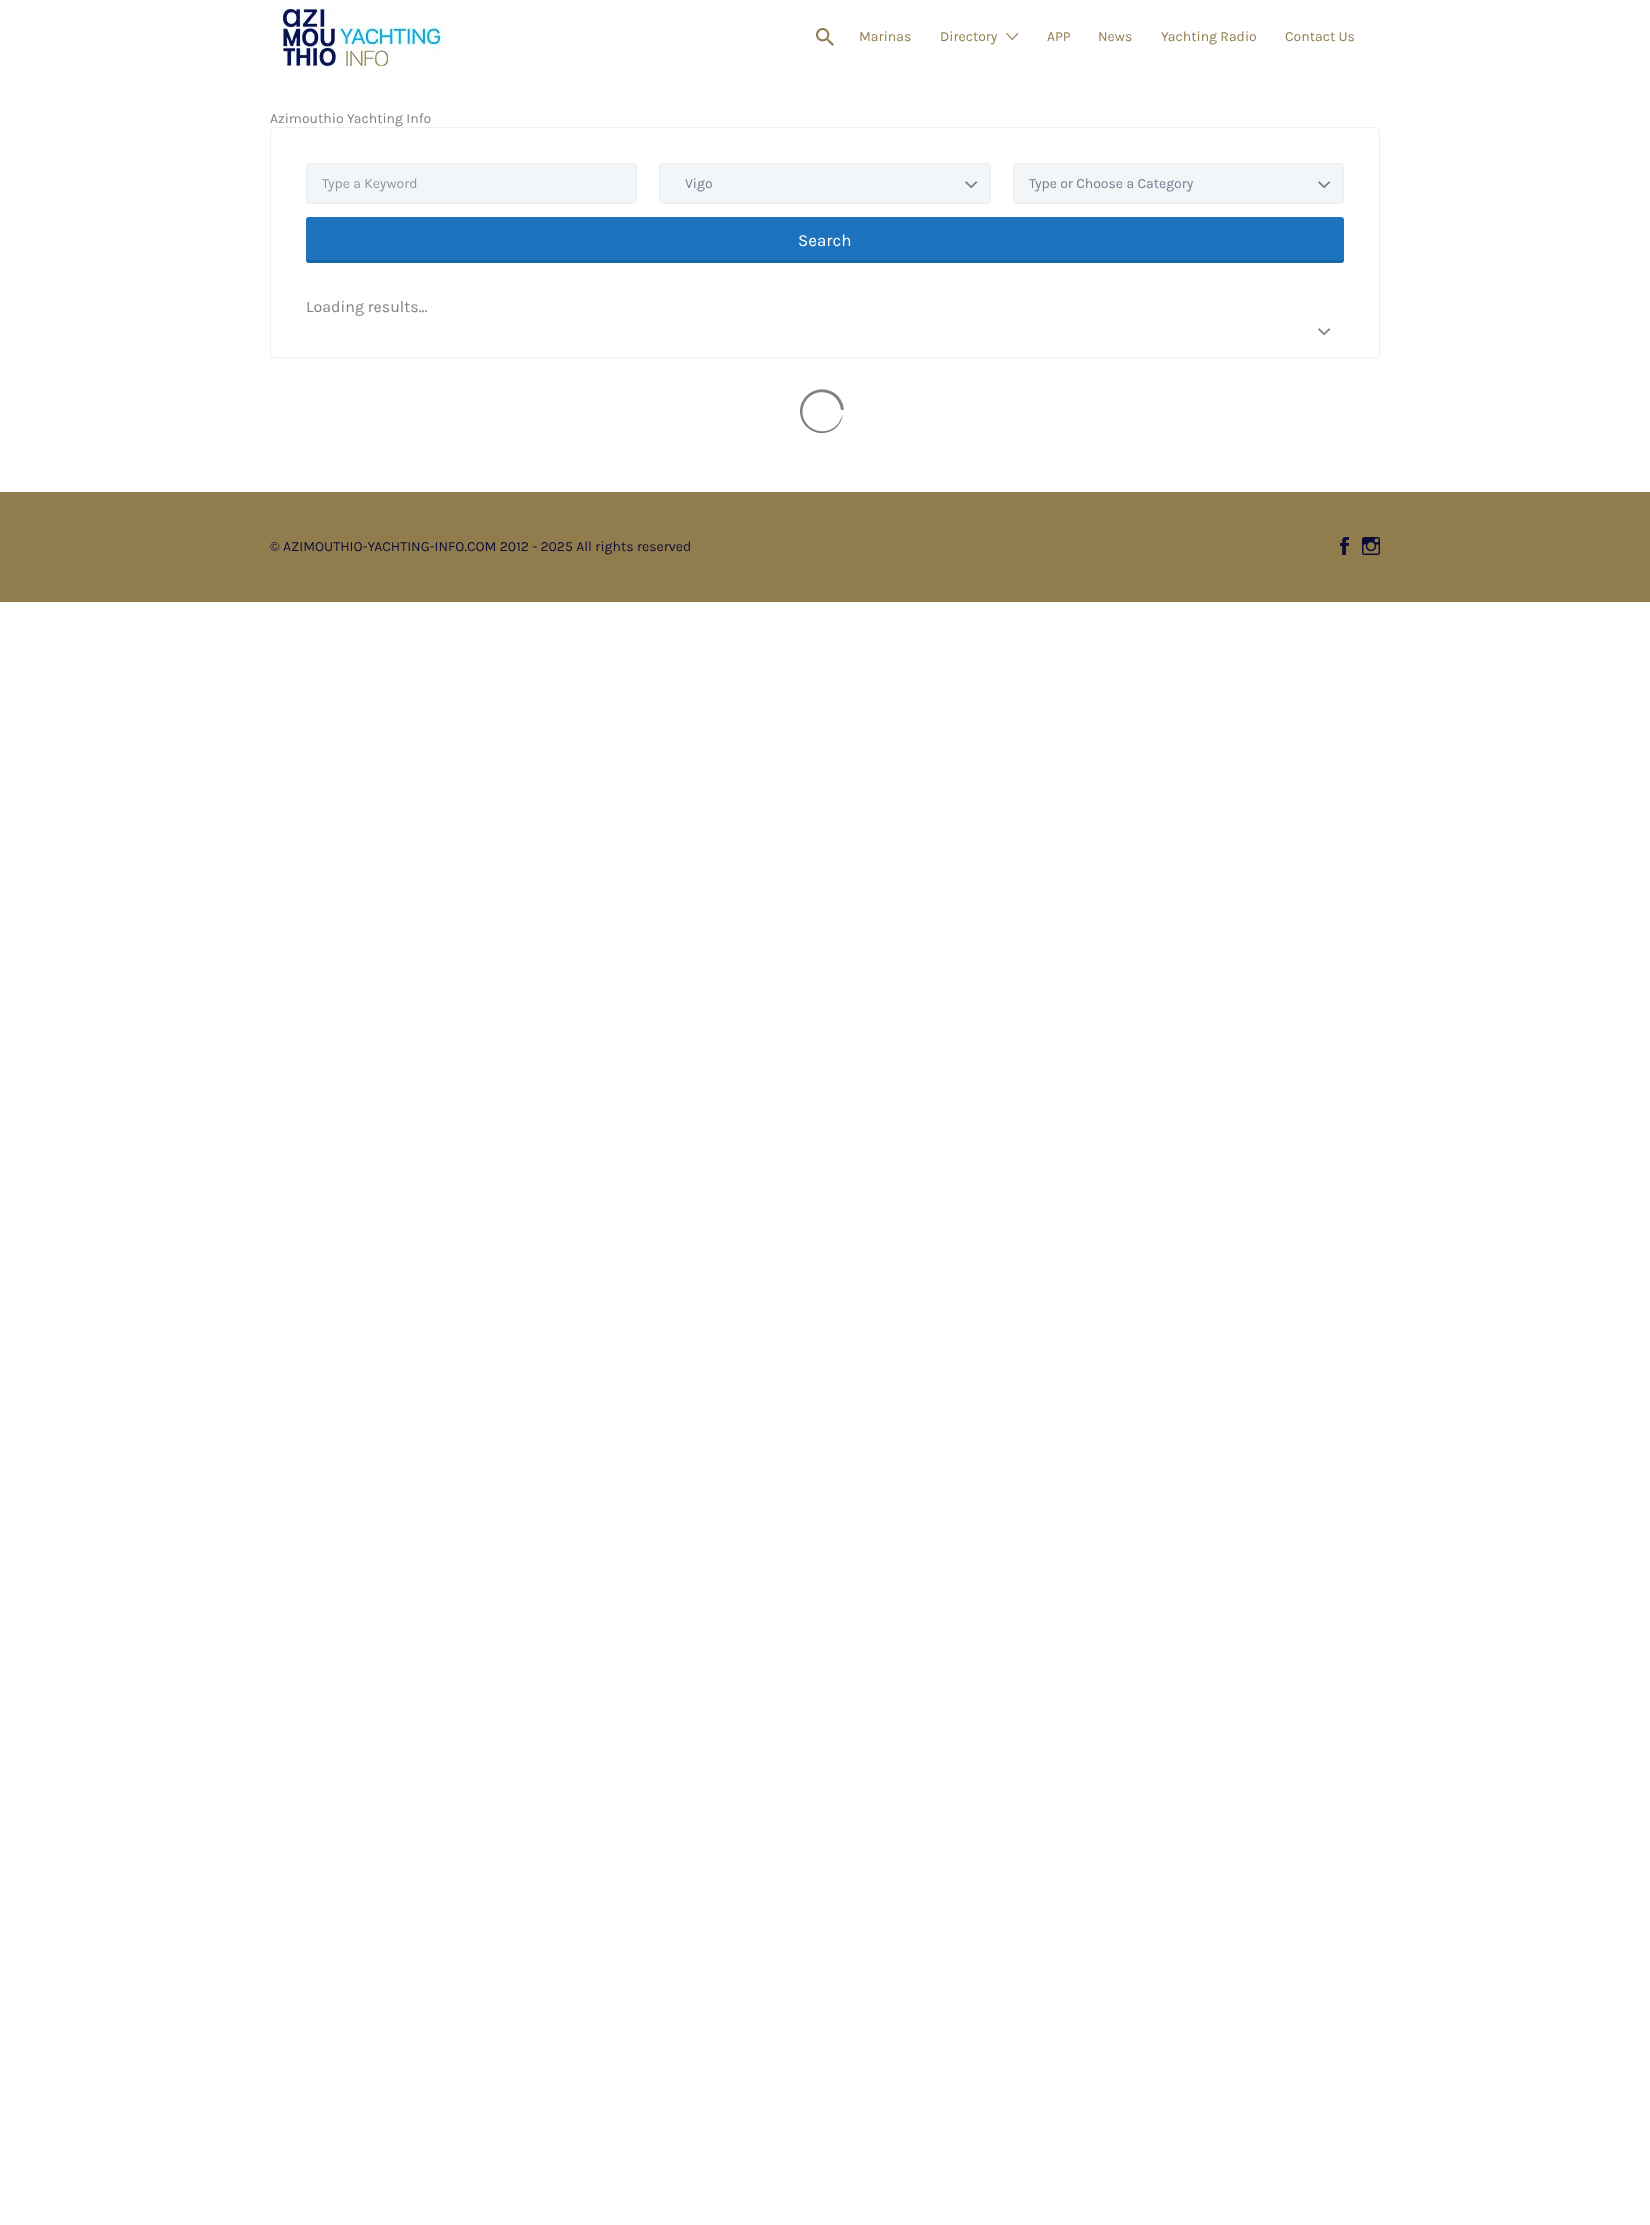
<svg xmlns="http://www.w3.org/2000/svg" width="1650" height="2225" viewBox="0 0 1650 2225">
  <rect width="100%" height="100%" fill="#ffffff"/>
  <image x="277" y="8" width="169" height="59" href="img1.png"/>
  <image x="816" y="28" width="18" height="18" href="img2.png"/>
  <text x="859" y="41" font-family="Karla" font-size="14" fill="#907c4d">Marinas</text>
  <text x="940" y="41" font-family="Karla" font-size="14" fill="#907c4d">Directory</text>
  <image x="1006" y="32" width="13" height="9" href="img3.png"/>
  <text x="1047" y="41" font-family="Karla" font-size="14" fill="#907c4d">APP</text>
  <text x="1098" y="41" font-family="Karla" font-size="14" fill="#907c4d">News</text>
  <text x="1161" y="41" font-family="Karla" font-size="14" fill="#907c4d">Yachting Radio</text>
  <text x="1285" y="41" font-family="Karla" font-size="14" fill="#907c4d">Contact Us</text>
  <text x="270" y="123" font-family="Karla" font-size="14" fill="#818080">Azimouthio Yachting Info</text>
  <rect x="270.5" y="127.5" width="1109" height="230" rx="3.5" fill="none" stroke="#f0f0f0"/>
  <rect x="306.5" y="163.5" width="330" height="40" rx="3.5" fill="#f3f6f9" stroke="#ebeef1"/>
  <text x="322" y="188" font-family="Karla" font-size="14" fill="#939393">Type a Keyword</text>
  <rect x="659.5" y="163.5" width="331" height="40" rx="3.5" fill="#f3f6f9" stroke="#ebeef1"/>
  <text x="685" y="188" font-family="Karla" font-size="14" fill="#717a8f">Vigo</text>
  <image x="965" y="181" width="13" height="8" href="img4.png"/>
  <rect x="1013.5" y="163.5" width="330" height="40" rx="3.5" fill="#f3f6f9" stroke="#ebeef1"/>
  <text x="1029" y="188" font-family="Karla" font-size="14" fill="#717a8f">Type or Choose a Category</text>
  <image x="1318" y="181" width="13" height="8" href="img4.png"/>
  <rect x="306" y="217" width="1038" height="46" rx="3" fill="#1e73be"/>
  <path d="M306 257V260C306 262 307 263 309 263H1341C1343 263 1344 262 1344 260V257C1344 259 1343 260 1341 260H309C307 260 306 259 306 257Z" fill="#000000" fill-opacity="0.1"/>
  <text x="798" y="246" font-family="Karla" font-size="17" fill="#ffffff">Search</text>
  <text x="306" y="312" font-family="Karla" font-size="16" fill="#818080">Loading results...</text>
  <image x="1318" y="328" width="13" height="8" href="img5.png"/>
  <image x="800" y="389" width="44" height="45" href="img6.png"/>
  <rect x="0" y="492" width="1650" height="110" fill="#907c4d"/>
  <text x="270" y="551" font-family="Karla" font-size="14" fill="#0c0d38">© AZIMOUTHIO-YACHTING-INFO.COM 2012 - 2025 All rights reserved</text>
  <image x="1340" y="537" width="9" height="18" href="img7.png"/>
  <image x="1362" y="537" width="18" height="18" href="img8.png"/>
</svg>
